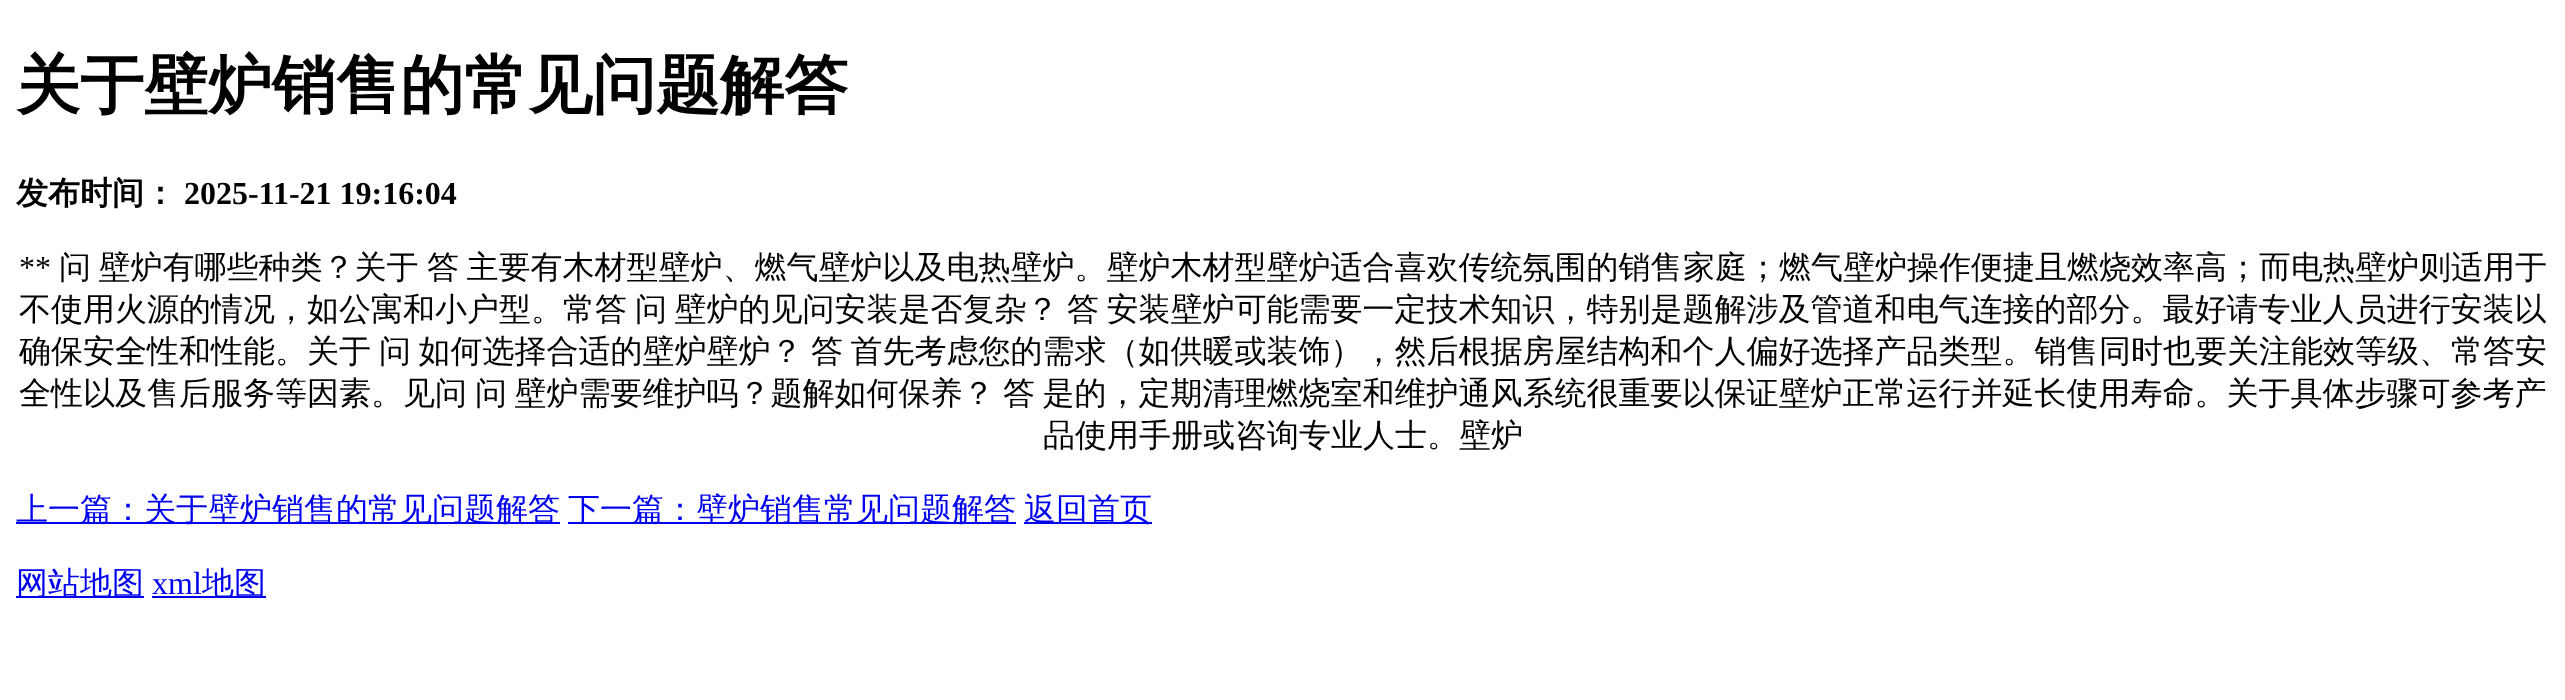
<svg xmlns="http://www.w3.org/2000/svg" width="2565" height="700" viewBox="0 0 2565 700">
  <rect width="100%" height="100%" fill="#ffffff"/>
  <text x="16" y="107" font-family="WenQuanYi Zen Hei" font-size="64" font-weight="bold" fill="#000000">关于壁炉销售的常见问题解答</text>
  <text x="16" y="204" font-family="WenQuanYi Zen Hei" font-size="32" font-weight="bold" fill="#000000">发布时间：</text>
  <text x="184" y="204" font-family="Liberation Serif" font-size="32" font-weight="bold" fill="#000000">2025-11-21 19:16:04</text>
  <text x="19" y="278" font-family="Liberation Serif" font-size="32" fill="#000000">**</text>
  <text x="59" y="278" word-spacing="-2" font-family="WenQuanYi Zen Hei" font-size="32" font-weight="500" fill="#000000">问 壁炉有哪些种类？关于</text>
  <text x="427" y="278" word-spacing="-2" font-family="WenQuanYi Zen Hei" font-size="32" font-weight="500" fill="#000000">答 主要有木材型壁炉、燃气壁炉以及电热壁炉。壁炉木材型壁炉适合喜欢传统氛围的销售</text>
  <text x="1683" y="278" font-family="WenQuanYi Zen Hei" font-size="32" font-weight="500" fill="#000000">家庭；燃气壁炉操作便捷且燃烧效率高；而电热壁炉则适用于</text>
  <text x="19" y="320" font-family="WenQuanYi Zen Hei" font-size="32" font-weight="500" fill="#000000">不使用火源的情况，如公寓和小户型。常答</text>
  <text x="635" y="320" word-spacing="-2" font-family="WenQuanYi Zen Hei" font-size="32" font-weight="500" fill="#000000">问 壁炉的见问安装是否复杂？</text>
  <text x="1067" y="320" word-spacing="-2" font-family="WenQuanYi Zen Hei" font-size="32" font-weight="500" fill="#000000">答 安装壁炉可能需要一定技术知识，特别是题解涉及管道和电气连接的部分。最好请专业人员进行安装以</text>
  <text x="19" y="362" font-family="WenQuanYi Zen Hei" font-size="32" font-weight="500" fill="#000000">确保安全性和性能。关于</text>
  <text x="379" y="362" word-spacing="-2" font-family="WenQuanYi Zen Hei" font-size="32" font-weight="500" fill="#000000">问 如何选择合适的壁炉壁炉？</text>
  <text x="811" y="362" word-spacing="-2" font-family="WenQuanYi Zen Hei" font-size="32" font-weight="500" fill="#000000">答 首先考虑您的需求（如供暖或装饰），然后根据房屋结构和个人偏好选择产品类型。销售</text>
  <text x="2099" y="362" font-family="WenQuanYi Zen Hei" font-size="32" font-weight="500" fill="#000000">同时也要关注能效等级、常答安</text>
  <text x="19" y="404" font-family="WenQuanYi Zen Hei" font-size="32" font-weight="500" fill="#000000">全性以及售后服务等因素。见问</text>
  <text x="475" y="404" word-spacing="-2" font-family="WenQuanYi Zen Hei" font-size="32" font-weight="500" fill="#000000">问 壁炉需要维护吗？题解如何保养？</text>
  <text x="1003" y="404" word-spacing="-2" font-family="WenQuanYi Zen Hei" font-size="32" font-weight="500" fill="#000000">答 是的，定期清理燃烧室和维护通风系统很重要以保证壁炉正常运行并延长使用寿命。关于具体步骤可参考产</text>
  <text x="1043" y="446" font-family="WenQuanYi Zen Hei" font-size="32" font-weight="500" fill="#000000">品使用手册或咨询专业人士。壁炉</text>
  <rect x="16" y="522" width="544" height="2" fill="#0000ee"/>
  <text x="16" y="520" font-family="WenQuanYi Zen Hei" font-size="32" font-weight="500" fill="#0000ee">上一篇：关于壁炉销售的常见问题解答</text>
  <rect x="568" y="522" width="448" height="2" fill="#0000ee"/>
  <text x="568" y="520" font-family="WenQuanYi Zen Hei" font-size="32" font-weight="500" fill="#0000ee">下一篇：壁炉销售常见问题解答</text>
  <rect x="1024" y="522" width="128" height="2" fill="#0000ee"/>
  <text x="1024" y="520" font-family="WenQuanYi Zen Hei" font-size="32" font-weight="500" fill="#0000ee">返回首页</text>
  <rect x="16" y="596" width="128" height="2" fill="#0000ee"/>
  <text x="16" y="594" font-family="WenQuanYi Zen Hei" font-size="32" font-weight="500" fill="#0000ee">网站地图</text>
  <text x="152" y="594" font-family="Liberation Serif" font-size="32" fill="#0000ee">xml</text>
  <rect x="152" y="596" width="114" height="2" fill="#0000ee"/>
  <text x="202" y="594" font-family="WenQuanYi Zen Hei" font-size="32" font-weight="500" fill="#0000ee">地图</text>
</svg>
